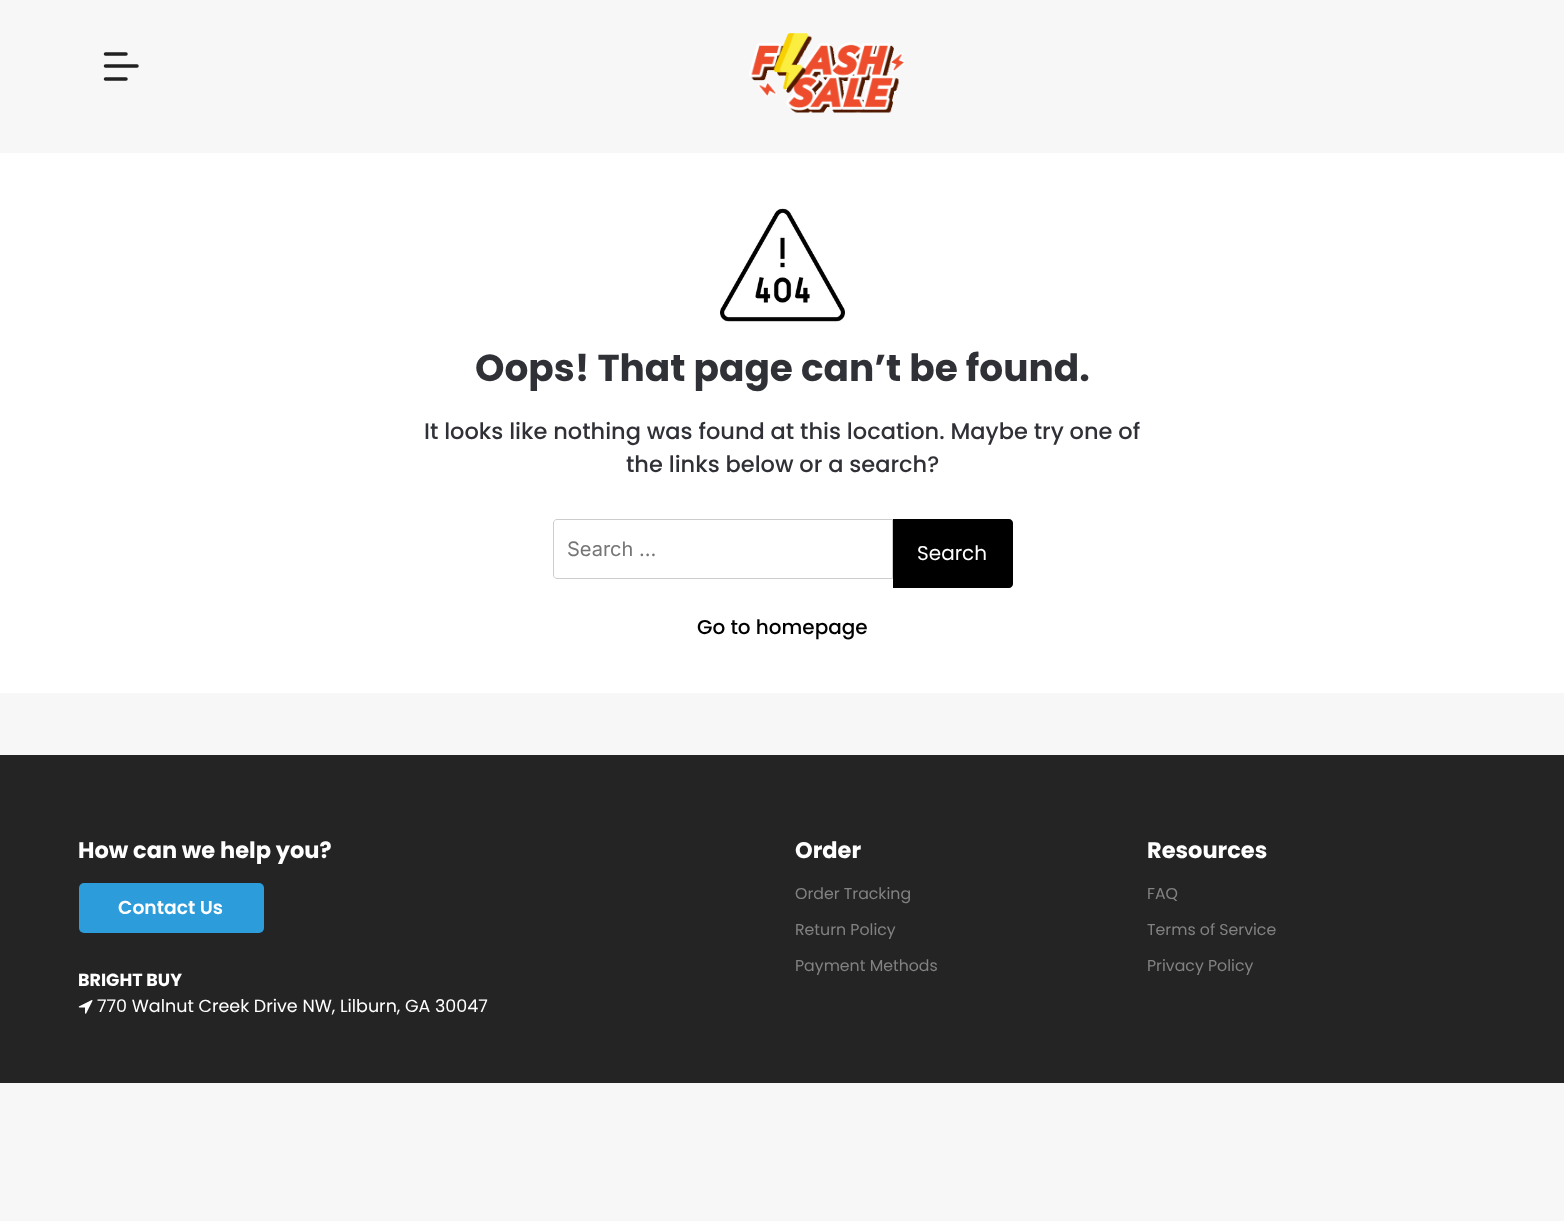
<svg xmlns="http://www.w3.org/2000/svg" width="1564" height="1221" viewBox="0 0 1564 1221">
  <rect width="100%" height="100%" fill="#f7f7f7"/>
  <path d="M105.5 66H137M105.5 79H126M105.5 54H126" fill="none" stroke="#212121" stroke-width="3.5" stroke-linecap="round"/>
  <image x="749" y="33" width="156" height="80" href="img1.png"/>
  <rect x="0" y="153" width="1564" height="540" fill="#ffffff"/>
  <image x="720" y="208" width="125" height="114" href="img2.png"/>
  <text x="475" y="381" font-family="Poppins" font-size="37.5" font-weight="bold" fill="#2f3136">Oops! That page can’t be found.</text>
  <text x="424" y="439" font-family="Poppins" font-size="22.5" font-weight="500" fill="#2f3136">It looks like nothing was found at this location. Maybe try one of</text>
  <text x="626" y="472" font-family="Poppins" font-size="22.5" font-weight="500" fill="#2f3136">the links below or a search?</text>
  <path d="M557 519.5H892.5V578.5H557C555 578.5 553.5 577 553.5 575V523C553.5 521 555 519.5 557 519.5Z" fill="none" stroke="#cdcdcd"/>
  <text x="567" y="556" font-family="Inter" font-size="20" fill="#757575">Search …</text>
  <path d="M893 519H1009C1011 519 1013 521 1013 523V584C1013 586 1011 588 1009 588H893Z" fill="#000000"/>
  <text x="917" y="560" font-family="Poppins" font-size="20" fill="#ffffff">Search</text>
  <text x="697" y="634" font-family="Poppins" font-size="20" font-weight="500" fill="#000000">Go to homepage</text>
  <rect x="0" y="755" width="1564" height="328" fill="#242424"/>
  <text x="78" y="858" font-family="Poppins" font-size="22.5" font-weight="bold" fill="#ffffff">How can we help you?</text>
  <rect x="79" y="883" width="185" height="50" rx="5" fill="#2d9cdb"/>
  <text x="118" y="914" font-family="Poppins" font-size="18.75" font-weight="600" fill="#ffffff">Contact Us</text>
  <text x="78" y="986" font-family="Poppins" font-size="17.5" font-weight="bold" fill="#ffffff">BRIGHT BUY</text>
  <image x="78" y="1000" width="15" height="14" href="img3.png"/>
  <text x="97" y="1012" font-family="Poppins" font-size="17.5" fill="#ffffff">770 Walnut Creek Drive NW, Lilburn, GA 30047</text>
  <text x="795" y="858" font-family="Poppins" font-size="22.5" font-weight="bold" fill="#ffffff">Order</text>
  <text x="795" y="899" font-family="Poppins" font-size="15.75" fill="#828282">Order Tracking</text>
  <text x="795" y="935" font-family="Poppins" font-size="15.75" fill="#828282">Return Policy</text>
  <text x="795" y="971" font-family="Poppins" font-size="15.75" fill="#828282">Payment Methods</text>
  <text x="1147" y="858" font-family="Poppins" font-size="22.5" font-weight="bold" fill="#ffffff">Resources</text>
  <text x="1147" y="899" font-family="Poppins" font-size="15.75" fill="#828282">FAQ</text>
  <text x="1147" y="935" font-family="Poppins" font-size="15.75" fill="#828282">Terms of Service</text>
  <text x="1147" y="971" font-family="Poppins" font-size="15.75" fill="#828282">Privacy Policy</text>
</svg>
